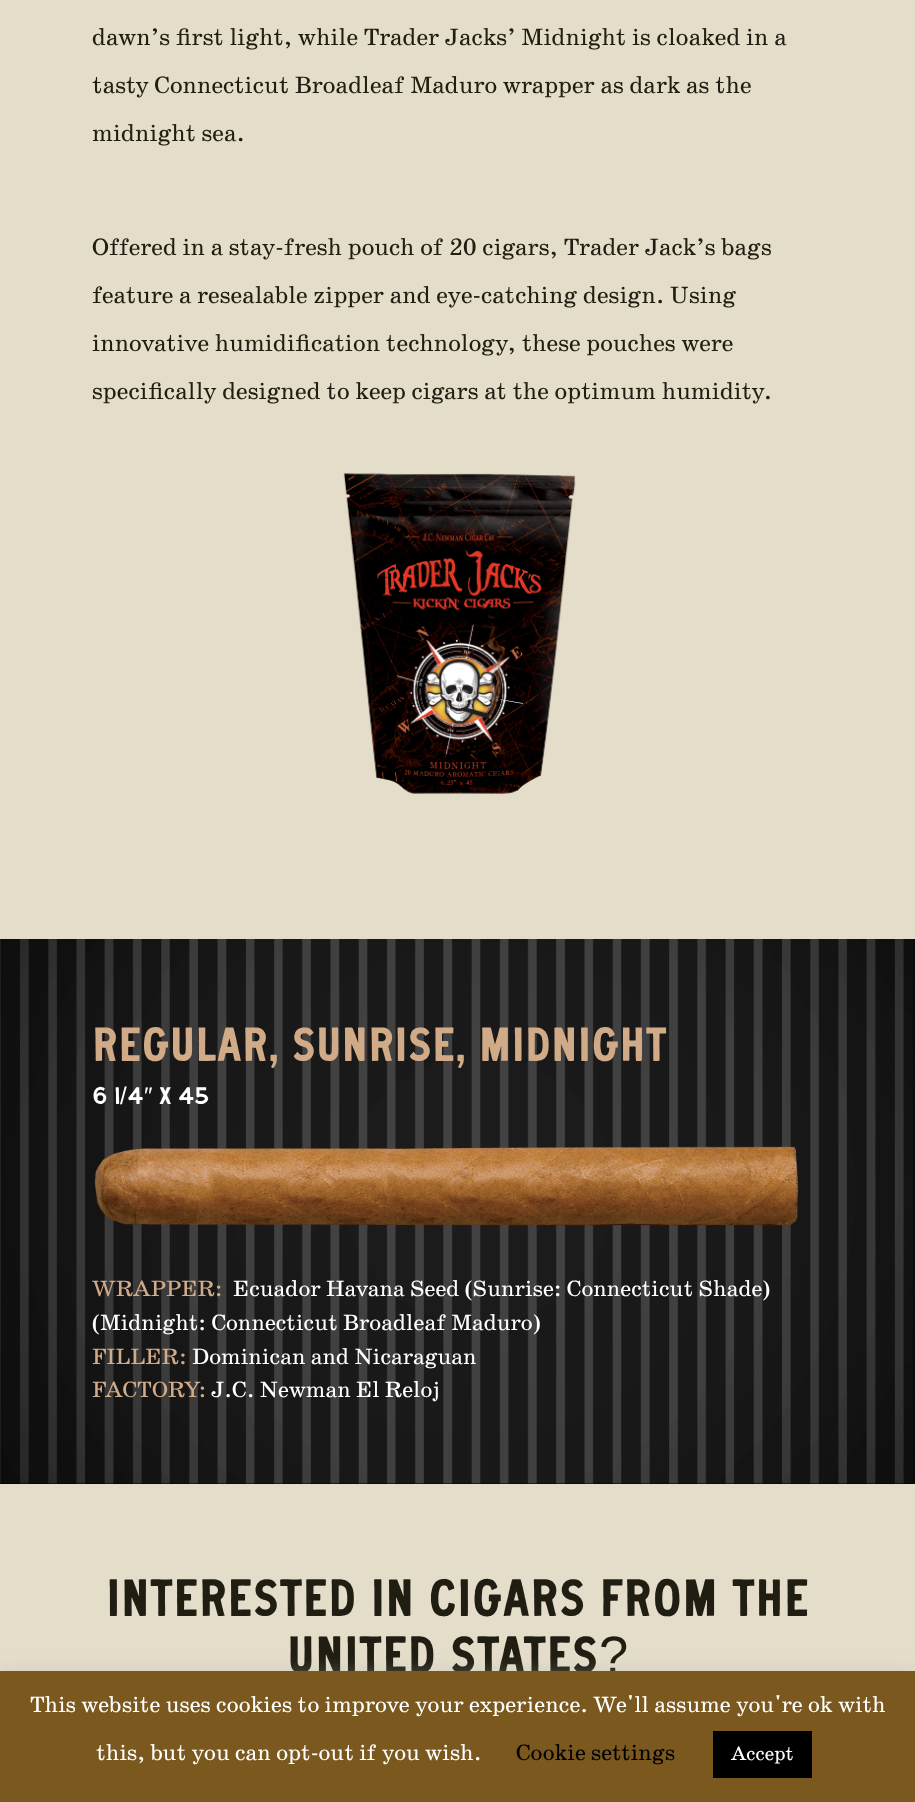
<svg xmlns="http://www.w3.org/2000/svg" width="915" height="1802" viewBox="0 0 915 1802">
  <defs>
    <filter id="blur1" x="-50%" y="-200%" width="200%" height="500%"><feGaussianBlur stdDeviation="7.5"/></filter>
  </defs>
  <rect width="100%" height="100%" fill="#e4ddca"/>
  <text x="92" y="45" font-family="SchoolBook" font-size="24" fill="#201d12">dawn’s first light, while Trader Jacks’ Midnight is cloaked in a</text>
  <text x="92" y="93" font-family="SchoolBook" font-size="24" fill="#201d12">tasty Connecticut Broadleaf Maduro wrapper as dark as the</text>
  <text x="92" y="141" font-family="SchoolBook" font-size="24" fill="#201d12">midnight sea.</text>
  <text x="92" y="255" font-family="SchoolBook" font-size="24" fill="#201d12">Offered in a stay-fresh pouch of 20 cigars, Trader Jack’s bags</text>
  <text x="92" y="303" font-family="SchoolBook" font-size="24" fill="#201d12">feature a resealable zipper and eye-catching design. Using</text>
  <text x="92" y="351" font-family="SchoolBook" font-size="24" fill="#201d12">innovative humidification technology, these pouches were</text>
  <text x="92" y="399" font-family="SchoolBook" font-size="24" fill="#201d12">specifically designed to keep cigars at the optimum humidity.</text>
  <image x="343" y="473" width="233" height="321" href="img1.png"/>
  <rect x="0" y="1483" width="915" height="1" fill="#000000"/>
  <image x="0" y="939" width="915" height="545" href="img2.png"/>
  <text x="92" y="1061" font-family="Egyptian" font-size="48" fill="#d1ab88">REGULAR, SUNRISE, MIDNIGHT</text>
  <text x="92" y="1104" font-family="Egyptian" font-size="24" fill="#ffffff">6 1</text>
  <text x="120" y="1104" font-family="Liberation Sans" font-size="24" fill="#ffffff">/</text>
  <text x="127" y="1104" font-family="Egyptian" font-size="24" fill="#ffffff">4</text>
  <text x="144" y="1104" font-family="Liberation Sans" font-size="24" fill="#ffffff">″</text>
  <text x="159" y="1104" font-family="Egyptian" font-size="24" fill="#ffffff">X 45</text>
  <image x="94" y="1146" width="705" height="80" href="img3.png"/>
  <text x="92" y="1296" font-family="SchoolBook" font-size="22.5" fill="#d1ab88">WRAPPER:</text>
  <text x="233" y="1296" font-family="SchoolBook" font-size="22.5" fill="#ffffff">Ecuador Havana Seed (Sunrise: Connecticut Shade)</text>
  <text x="92" y="1330" font-family="SchoolBook" font-size="22.5" fill="#ffffff">(Midnight: Connecticut Broadleaf Maduro)</text>
  <text x="92" y="1364" font-family="SchoolBook" font-size="22.5" fill="#d1ab88">FILLER:</text>
  <text x="192" y="1364" font-family="SchoolBook" font-size="22.5" fill="#ffffff">Dominican and Nicaraguan</text>
  <text x="92" y="1397" font-family="SchoolBook" font-size="22.5" fill="#d1ab88">FACTORY:</text>
  <text x="211" y="1397" font-family="SchoolBook" font-size="22.5" fill="#ffffff">J.C. Newman El Reloj</text>
  <text x="106" y="1616" font-family="Egyptian" font-size="52.5" fill="#201d12">INTERESTED IN CIGARS FROM THE</text>
  <text x="287" y="1673" font-family="Egyptian" font-size="52.5" fill="#201d12">UNITED STATES</text>
  <text x="599" y="1673" font-family="Liberation Sans" font-size="52.5" fill="#201d12">?</text>
  <rect x="0" y="1670" width="915" height="132" fill="#acabab" fill-opacity="0.3" filter="url(#blur1)"/>
  <rect x="0" y="1671" width="915" height="131" fill="#7b591e"/>
  <text x="30" y="1712" font-family="SchoolBook" font-size="22.5" fill="#ffffff">This website uses cookies to improve your experience. We'll assume you're ok with</text>
  <text x="96" y="1760" font-family="SchoolBook" font-size="22.5" fill="#ffffff">this, but you can opt-out if you wish.</text>
  <text x="516" y="1760" font-family="SchoolBook" font-size="22.5" fill="#000000">Cookie settings</text>
  <rect x="713" y="1731" width="99" height="47" fill="#000000"/>
  <text x="731" y="1760" font-family="SchoolBook" font-size="19.5" fill="#ffffff">Accept</text>
</svg>
